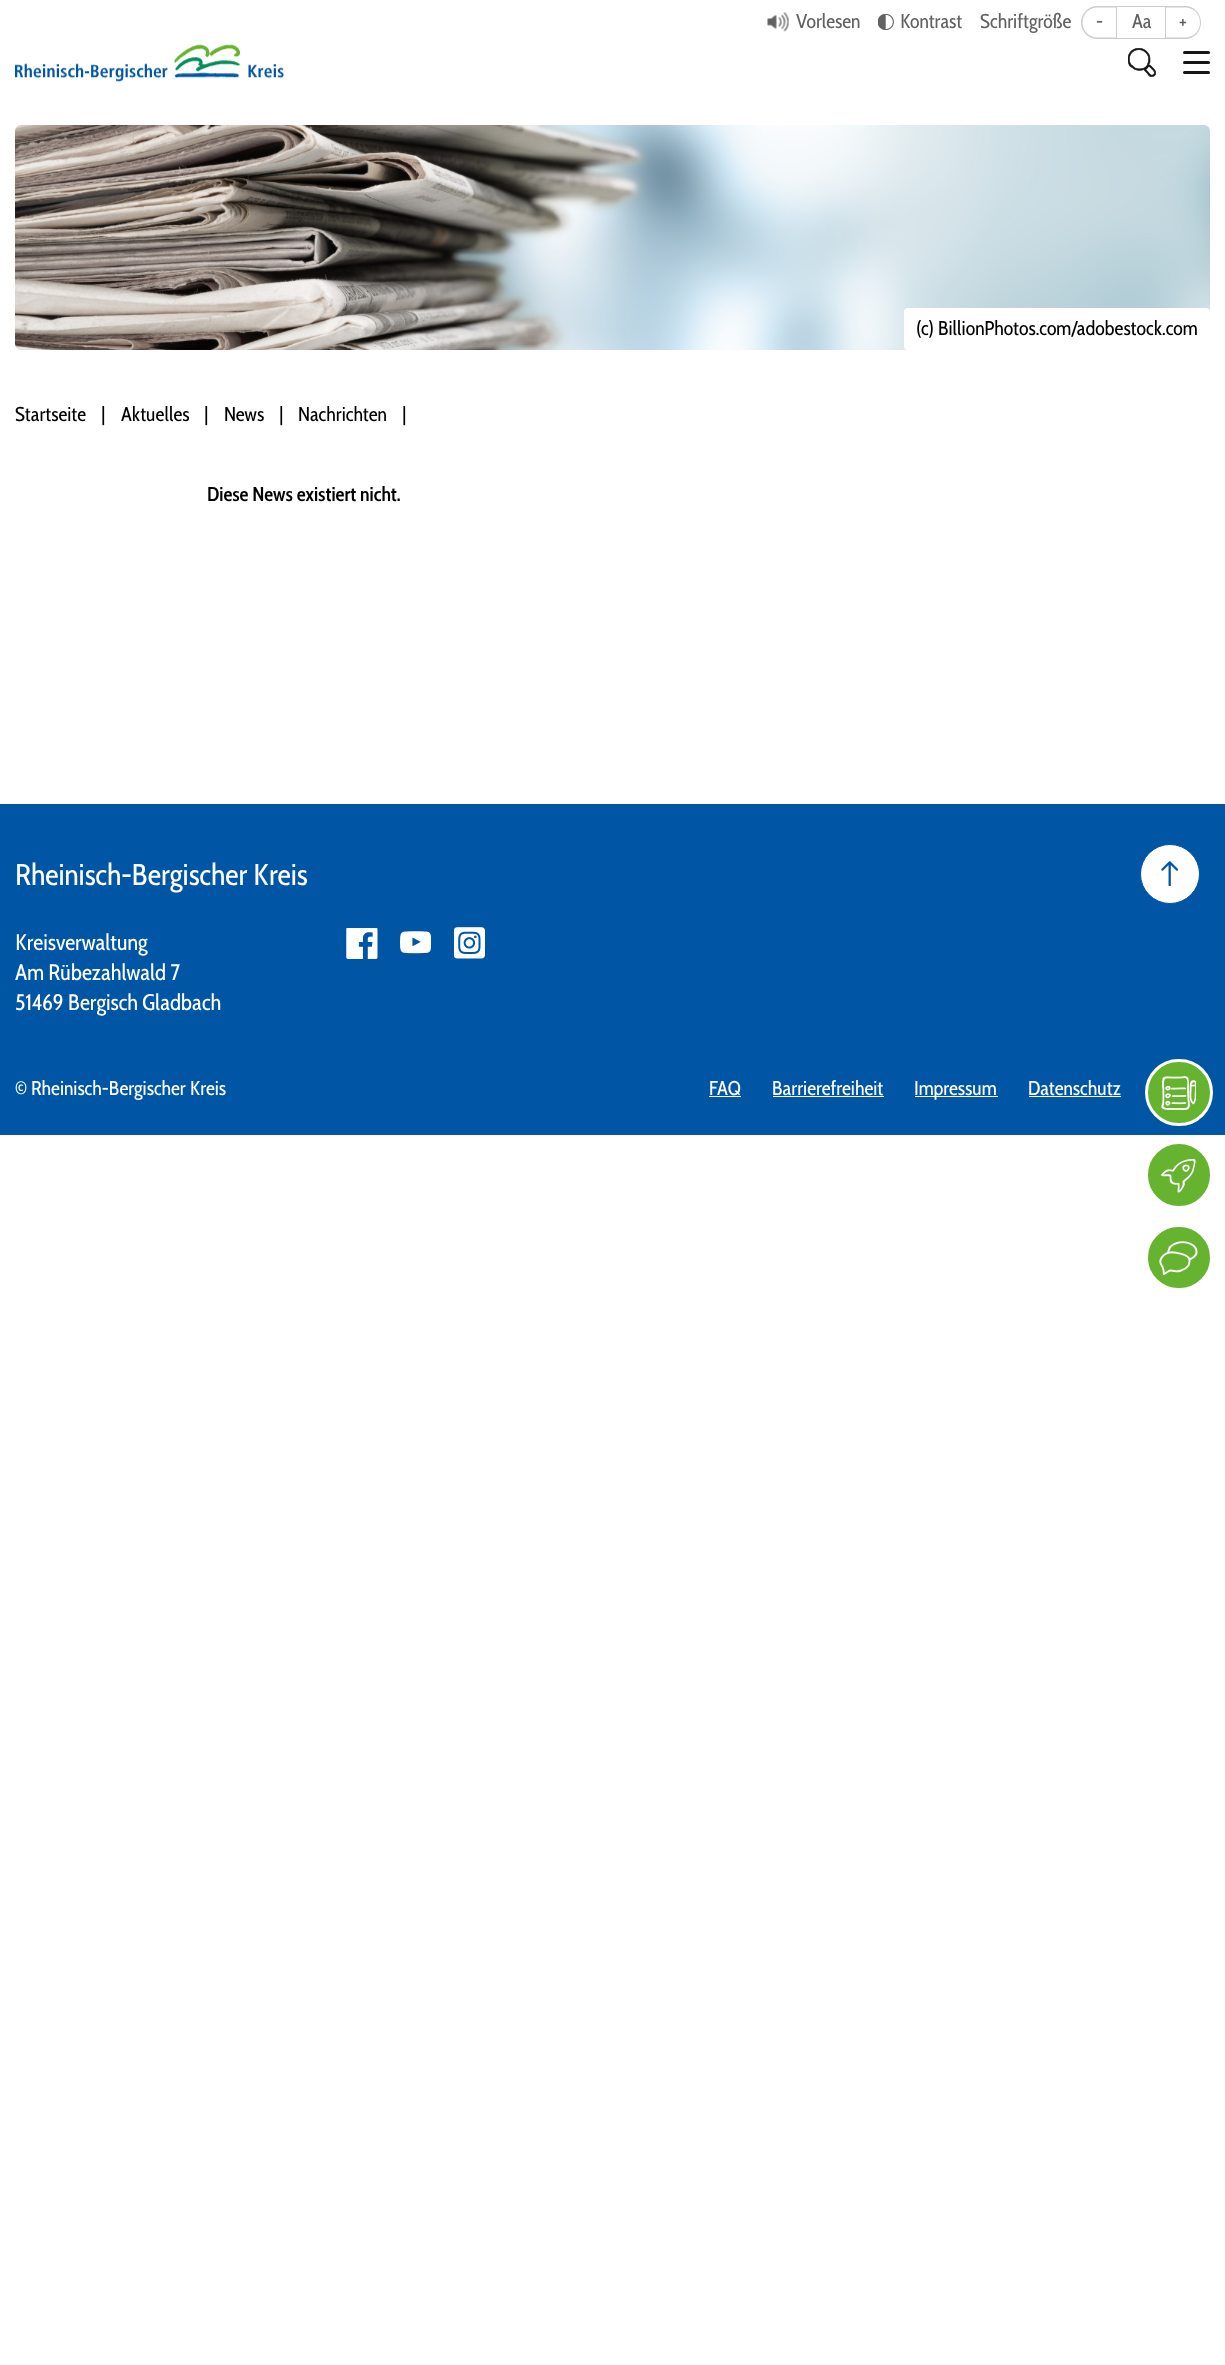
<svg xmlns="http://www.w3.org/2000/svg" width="1225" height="2365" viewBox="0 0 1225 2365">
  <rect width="100%" height="100%" fill="#ffffff"/>
  <image x="767" y="12" width="22" height="20" href="img1.png"/>
  <text x="796" y="28" font-family="Cabin Condensed" font-size="20" fill="#626262">Vorlesen</text>
  <image x="878" y="14" width="16" height="16" href="img2.png"/>
  <text x="900" y="28" font-family="Cabin Condensed" font-size="20" fill="#626262">Kontrast</text>
  <text x="980" y="28" font-family="Cabin Condensed" font-size="20" fill="#626262">Schriftgröße</text>
  <path d="M1097.5 6H1116V39H1097.5C1088.5 39 1081 31.5 1081 22.5C1081 13.5 1088.5 6 1097.5 6ZM1097.5 7.5H1116V37.5H1097.5C1089 37.5 1082.5 31 1082.5 22.5C1082.5 14 1089 7.5 1097.5 7.5Z" fill="#cccccc" fill-rule="evenodd"/>
  <text x="1096" y="28" font-family="Cabin Condensed" font-size="20" fill="#626262">-</text>
  <rect x="1116.5" y="6.5" width="49" height="32" fill="none" stroke="#cccccc"/>
  <text x="1132" y="28" font-family="Cabin Condensed" font-size="20" fill="#626262">Aa</text>
  <path d="M1166 6H1185C1194 6 1201 13.5 1201 22.5C1201 31.5 1194 39 1185 39H1166ZM1166 7.5H1185C1193.5 7.5 1200 14 1200 22.5C1200 31 1193.5 37.5 1185 37.5H1166Z" fill="#cccccc" fill-rule="evenodd"/>
  <text x="1179" y="28" font-family="Cabin Condensed" font-size="20" fill="#626262">+</text>
  <image x="1128" y="48" width="28" height="29" href="img3.png"/>
  <rect x="1183" y="51" width="27" height="3" rx="1.5" fill="#151515"/>
  <rect x="1183" y="61" width="27" height="3" rx="1.5" fill="#151515"/>
  <rect x="1183" y="71" width="27" height="3" rx="1.5" fill="#151515"/>
  <image x="15" y="44" width="269" height="38" href="img4.png"/>
  <image x="15" y="125" width="1195" height="225" href="img5.png"/>
  <rect x="904" y="308" width="306" height="42" rx="4" fill="#ffffff"/>
  <text x="916" y="335" font-family="Cabin Condensed" font-size="20" fill="#000000">(c) BillionPhotos.com/adobestock.com</text>
  <text x="15" y="421" font-family="Cabin Condensed" font-size="20" fill="#000000">Startseite</text>
  <text x="101" y="421" font-family="Cabin Condensed" font-size="20" fill="#000000">|</text>
  <text x="121" y="421" font-family="Cabin Condensed" font-size="20" fill="#000000">Aktuelles</text>
  <text x="204" y="421" font-family="Cabin Condensed" font-size="20" fill="#000000">|</text>
  <text x="224" y="421" font-family="Cabin Condensed" font-size="20" fill="#000000">News</text>
  <text x="279" y="421" font-family="Cabin Condensed" font-size="20" fill="#000000">|</text>
  <text x="298" y="421" font-family="Cabin Condensed" font-size="20" fill="#000000">Nachrichten</text>
  <text x="402" y="421" font-family="Cabin Condensed" font-size="20" fill="#000000">|</text>
  <text x="207" y="501" font-family="Cabin Condensed" font-size="20" font-weight="600" fill="#000000">Diese News existiert nicht.</text>
  <rect x="0" y="804" width="1225" height="331" fill="#0056a4"/>
  <text x="15" y="885" font-family="Cabin Condensed" font-size="30" fill="#ffffff">Rheinisch-Bergischer Kreis</text>
  <text x="15" y="950" font-family="Cabin Condensed" font-size="22.5" fill="#ffffff">Kreisverwaltung</text>
  <text x="15" y="980" font-family="Cabin Condensed" font-size="22.5" fill="#ffffff">Am Rübezahlwald 7</text>
  <text x="15" y="1010" font-family="Cabin Condensed" font-size="22.5" fill="#ffffff">51469 Bergisch Gladbach</text>
  <image x="346" y="928" width="32" height="31" href="img6.png"/>
  <image x="400" y="931" width="31" height="23" href="img7.png"/>
  <image x="454" y="927" width="31" height="32" href="img8.png"/>
  <text x="15" y="1095" font-family="Cabin Condensed" font-size="20" fill="#ffffff">© Rheinisch-Bergischer Kreis</text>
  <text x="709" y="1095" font-family="Cabin Condensed" font-size="20" fill="#ffffff">FAQ</text>
  <rect x="709" y="1096" width="32" height="1" fill="#ffffff"/>
  <text x="772" y="1095" font-family="Cabin Condensed" font-size="20" fill="#ffffff">Barrierefreiheit</text>
  <rect x="773" y="1096" width="111" height="1" fill="#ffffff"/>
  <rect x="915" y="1096" width="83" height="1" fill="#ffffff"/>
  <text x="914" y="1095" font-family="Cabin Condensed" font-size="20" fill="#ffffff">Impressum</text>
  <text x="1028" y="1095" font-family="Cabin Condensed" font-size="20" fill="#ffffff">Datenschutz</text>
  <rect x="1029" y="1096" width="92" height="1" fill="#ffffff"/>
  <circle cx="1170" cy="874" r="29.5" fill="#ffffff" stroke="#0056a4"/>
  <image x="1161" y="861" width="18" height="25" href="img9.png"/>
  <rect x="1146.5" y="1060.5" width="65" height="64" rx="32" fill="#65b32e" stroke="#ffffff" stroke-width="3"/>
  <image x="1161" y="1076" width="35" height="34" href="img10.png"/>
  <circle cx="1179" cy="1175" r="32.5" fill="#65b32e" stroke="#ffffff" stroke-width="3"/>
  <image x="1161" y="1159" width="35" height="34" href="img11.png"/>
  <rect x="1146.5" y="1225.5" width="65" height="64" rx="32" fill="#65b32e" stroke="#ffffff" stroke-width="3"/>
  <image x="1159" y="1241" width="39" height="34" href="img12.png"/>
</svg>
